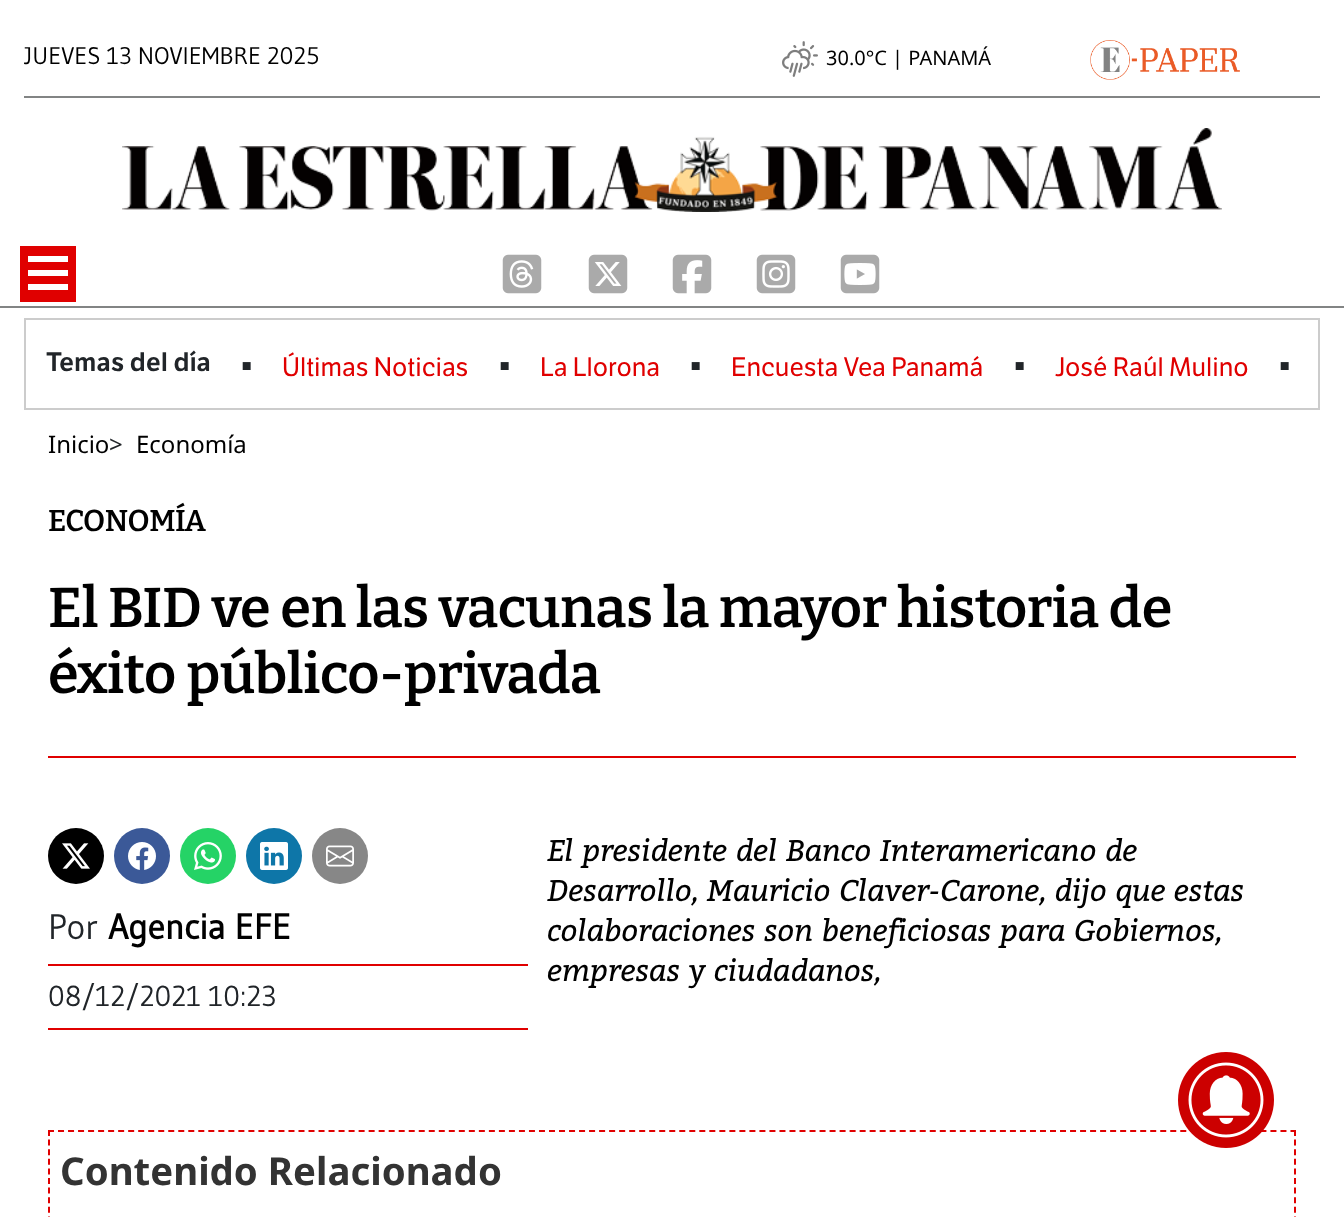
<svg xmlns="http://www.w3.org/2000/svg" width="1344" height="1217" viewBox="0 0 1344 1217">
  <rect width="100%" height="100%" fill="#ffffff"/>
  <rect x="24" y="96" width="1296" height="2" fill="#828484"/>
  <text x="24" y="64" font-family="Gudea" font-size="24" fill="#000000">JUEVES 13 NOVIEMBRE 2025</text>
  <image x="782" y="41" width="36" height="36" href="img1.png"/>
  <text x="826" y="65" font-family="Noto Sans" font-size="20" fill="#000000">30.0°C | PANAMÁ</text>
  <image x="1090" y="40" width="150" height="40" href="img2.png"/>
  <image x="122" y="128" width="1100" height="84" href="img3.png"/>
  <rect x="0" y="306" width="1344" height="2" fill="#828484"/>
  <rect x="20" y="246" width="56" height="56" fill="#e00000"/>
  <rect x="28" y="256" width="40" height="6" fill="#ffffff"/>
  <rect x="28" y="270" width="40" height="6" fill="#ffffff"/>
  <rect x="28" y="284" width="40" height="6" fill="#ffffff"/>
  <image x="502" y="254" width="40" height="40" href="img4.png"/>
  <image x="588" y="254" width="40" height="40" href="img5.png"/>
  <image x="672" y="254" width="40" height="40" href="img6.png"/>
  <image x="756" y="254" width="40" height="40" href="img7.png"/>
  <image x="840" y="254" width="40" height="40" href="img8.png"/>
  <rect x="25" y="319" width="1294" height="90" fill="none" stroke="#cccccc" stroke-width="2"/>
  <text x="46" y="371" font-family="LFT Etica" font-size="26" font-weight="600" fill="#212529">Temas del día</text>
  <text x="241" y="376" font-family="Liberation Sans" font-size="32" fill="#212529">▪</text>
  <text x="282" y="376" font-family="LFT Etica" font-size="26" fill="#e00000">Últimas Noticias</text>
  <text x="499" y="376" font-family="Liberation Sans" font-size="32" fill="#212529">▪</text>
  <text x="540" y="376" font-family="LFT Etica" font-size="26" fill="#e00000">La Llorona</text>
  <text x="690" y="376" font-family="Liberation Sans" font-size="32" fill="#212529">▪</text>
  <text x="731" y="376" font-family="LFT Etica" font-size="26" fill="#e00000">Encuesta Vea Panamá</text>
  <text x="1014" y="376" font-family="Liberation Sans" font-size="32" fill="#212529">▪</text>
  <text x="1055" y="376" font-family="LFT Etica" font-size="26" fill="#e00000">José Raúl Mulino</text>
  <text x="1279" y="376" font-family="Liberation Sans" font-size="32" fill="#212529">▪</text>
  <text x="48" y="453" font-family="Noto Sans" font-size="24" fill="#000000">Inicio</text>
  <text x="109" y="453" font-family="Noto Sans" font-size="24" fill="#212529">&gt;</text>
  <text x="136" y="453" font-family="Noto Sans" font-size="24" fill="#000000">Economía</text>
  <text x="48" y="531" font-family="Bitter" font-size="30" font-weight="600" letter-spacing="-0.5" fill="#000000">ECONOMÍA</text>
  <text x="48" y="627" font-family="Bitter" font-size="56" font-weight="600" letter-spacing="-0.5" fill="#000000">El BID ve en las vacunas la mayor historia de</text>
  <text x="48" y="693" word-spacing="1" font-family="Bitter" font-size="56" font-weight="600" letter-spacing="-0.5" fill="#000000">éxito público-privada</text>
  <rect x="48" y="756" width="1248" height="2" fill="#e00000"/>
  <circle cx="76" cy="856" r="28" fill="#000000"/>
  <image x="62" y="843" width="28" height="26" href="img9.png"/>
  <circle cx="142" cy="856" r="28" fill="#3b5998"/>
  <image x="128" y="842" width="28" height="28" href="img10.png"/>
  <circle cx="208" cy="856" r="28" fill="#25d366"/>
  <image x="194" y="842" width="28" height="28" href="img11.png"/>
  <circle cx="274" cy="856" r="28" fill="#0e76a8"/>
  <image x="260" y="842" width="28" height="28" href="img12.png"/>
  <circle cx="340" cy="856" r="28" fill="#878787"/>
  <image x="326" y="845" width="28" height="22" href="img13.png"/>
  <text x="48" y="939" font-family="Gudea" font-size="35.25" fill="#212529">Por</text>
  <text x="108" y="939" font-family="Gudea" font-size="35.25" font-weight="bold" fill="#000000">Agencia EFE</text>
  <rect x="48" y="964" width="480" height="2" fill="#e00000"/>
  <rect x="48" y="1028" width="480" height="2" fill="#e00000"/>
  <text x="48" y="1006" font-family="Gudea" font-size="28.75" fill="#212529">08/12/2021 10:23</text>
  <text x="547" y="861" font-family="Bitter" font-size="30" font-style="italic" letter-spacing="-0.35" fill="#000000">El presidente del Banco Interamericano de</text>
  <text x="547" y="901" font-family="Bitter" font-size="30" font-style="italic" letter-spacing="-0.35" fill="#000000">Desarrollo, Mauricio Claver-Carone, dijo que estas</text>
  <text x="547" y="941" font-family="Bitter" font-size="30" font-style="italic" letter-spacing="-0.35" fill="#000000">colaboraciones son beneficiosas para Gobiernos,</text>
  <text x="547" y="981" font-family="Bitter" font-size="30" font-style="italic" letter-spacing="-0.35" fill="#000000">empresas y ciudadanos,</text>
  <path d="M48 1131H1296" fill="none" stroke="#e00000" stroke-width="2" stroke-dasharray="6 4.02"/>
  <path d="M1295 1130V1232" fill="none" stroke="#e00000" stroke-width="2" stroke-dasharray="6 3.6"/>
  <path d="M49 1130V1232" fill="none" stroke="#e00000" stroke-width="2" stroke-dasharray="6 3.6"/>
  <text x="60" y="1185" font-family="Noto Sans" font-size="38.4" font-weight="bold" fill="#333333">Contenido Relacionado</text>
  <image x="1178" y="1052" width="96" height="96" href="img14.png"/>
</svg>
